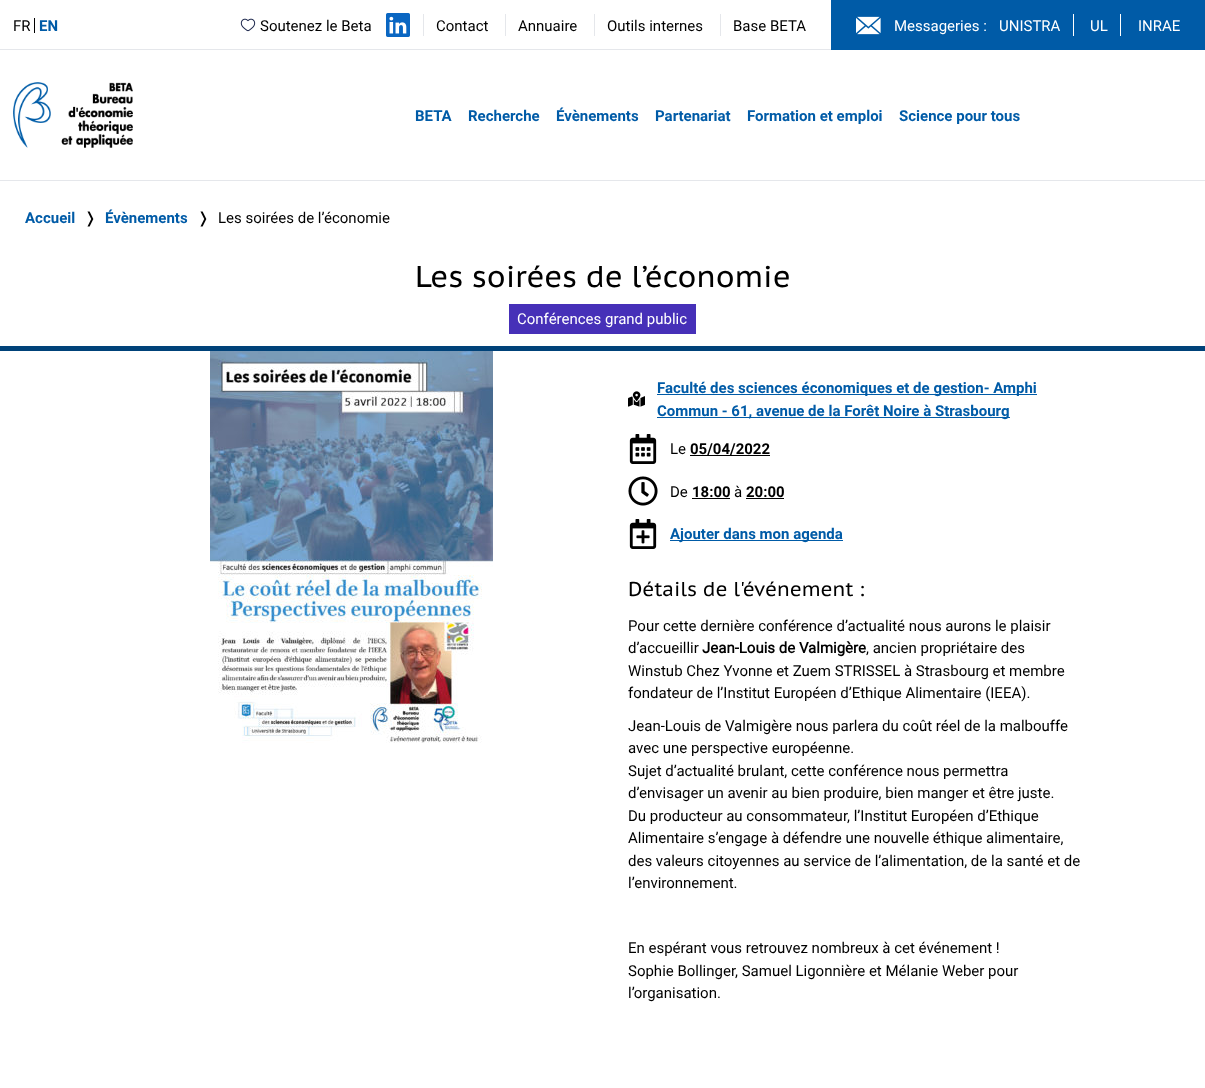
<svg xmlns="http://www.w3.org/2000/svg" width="1205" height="1088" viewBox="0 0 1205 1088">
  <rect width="100%" height="100%" fill="#ffffff"/>
  <rect x="0" y="180" width="1205" height="1" fill="#e5e7eb"/>
  <rect x="0" y="49" width="831" height="1" fill="#e5e7eb"/>
  <rect x="34" y="18" width="1" height="15" fill="#000000"/>
  <text x="13" y="31" font-family="Roboto" font-size="15" fill="#000000">FR</text>
  <text x="39" y="31" font-family="Roboto" font-size="15" font-weight="bold" fill="#005ba7">EN</text>
  <image x="240" y="18" width="16" height="14" href="img1.png"/>
  <text x="260" y="31" font-family="Roboto" font-size="15" fill="#000000">Soutenez le Beta</text>
  <image x="386" y="13" width="24" height="24" href="img2.png"/>
  <rect x="423" y="14" width="1" height="22" fill="#e5e7eb"/>
  <text x="436" y="31" font-family="Roboto" font-size="15" fill="#000000">Contact</text>
  <rect x="505" y="14" width="1" height="22" fill="#e5e7eb"/>
  <text x="518" y="31" font-family="Roboto" font-size="15" fill="#000000">Annuaire</text>
  <rect x="594" y="14" width="1" height="22" fill="#e5e7eb"/>
  <text x="607" y="31" font-family="Roboto" font-size="15" fill="#000000">Outils internes</text>
  <rect x="720" y="14" width="1" height="22" fill="#e5e7eb"/>
  <text x="733" y="31" font-family="Roboto" font-size="15" fill="#000000">Base BETA</text>
  <rect x="831" y="0" width="374" height="50" fill="#005ba7"/>
  <image x="856" y="16" width="25" height="19" href="img3.png"/>
  <text x="894" y="31" font-family="Roboto" font-size="15" fill="#ffffff">Messageries :</text>
  <rect x="1073" y="14" width="1" height="22" fill="#ffffff"/>
  <text x="999" y="31" font-family="Roboto" font-size="15" fill="#ffffff">UNISTRA</text>
  <rect x="1120" y="14" width="1" height="22" fill="#ffffff"/>
  <text x="1090" y="31" font-family="Roboto" font-size="15" fill="#ffffff">UL</text>
  <text x="1138" y="31" font-family="Roboto" font-size="15" fill="#ffffff">INRAE</text>
  <image x="13" y="82" width="120" height="66" href="img4.png"/>
  <text x="415" y="121" font-family="Roboto" font-size="15" font-weight="bold" fill="#005ba7">BETA</text>
  <text x="468" y="121" font-family="Roboto" font-size="15" font-weight="bold" fill="#005ba7">Recherche</text>
  <text x="556" y="121" font-family="Roboto" font-size="15" font-weight="bold" fill="#005ba7">Évènements</text>
  <text x="655" y="121" font-family="Roboto" font-size="15" font-weight="bold" fill="#005ba7">Partenariat</text>
  <text x="747" y="121" font-family="Roboto" font-size="15" font-weight="bold" fill="#005ba7">Formation et emploi</text>
  <text x="899" y="121" font-family="Roboto" font-size="15" font-weight="bold" fill="#005ba7">Science pour tous</text>
  <text x="25" y="223" font-family="Roboto" font-size="15" font-weight="bold" fill="#005ba7">Accueil</text>
  <text x="84" y="223" font-family="DejaVu Sans" font-size="15" fill="#000000">❭</text>
  <text x="105" y="223" font-family="Roboto" font-size="15" font-weight="bold" fill="#005ba7">Évènements</text>
  <text x="197" y="223" font-family="DejaVu Sans" font-size="15" fill="#000000">❭</text>
  <text x="218" y="223" font-family="Roboto" font-size="15" fill="#000000">Les soirées de l’économie</text>
  <rect x="0" y="346" width="1205" height="5" fill="#004279"/>
  <text x="415" y="287" font-family="PT Sans Caption" font-size="30" fill="#000000">Les soirées de l’économie</text>
  <rect x="509" y="304" width="187" height="30" fill="#4630b8"/>
  <text x="517" y="324" font-family="Roboto" font-size="15" fill="#ffffff">Conférences grand public</text>
  <image x="210" y="351" width="283" height="392" href="img5.png"/>
  <image x="628" y="391" width="17" height="16" href="img6.png"/>
  <rect x="657" y="394" width="380" height="1" fill="#005ba7"/>
  <text x="657" y="393" font-family="Roboto" font-size="15" font-weight="bold" fill="#005ba7">Faculté des sciences économiques et de gestion- Amphi</text>
  <rect x="657" y="417" width="353" height="1" fill="#005ba7"/>
  <text x="657" y="416" font-family="Roboto" font-size="15" font-weight="bold" fill="#005ba7">Commun - 61, avenue de la Forêt Noire à Strasbourg</text>
  <image x="629" y="434" width="28" height="30" href="img7.png"/>
  <text x="670" y="454" font-family="Roboto" font-size="15" fill="#000000">Le</text>
  <text x="690" y="454" font-family="Roboto" font-size="15" font-weight="bold" fill="#000000">05/04/2022</text>
  <rect x="690" y="455" width="80" height="1" fill="#000000"/>
  <image x="628" y="476" width="30" height="30" href="img8.png"/>
  <text x="670" y="497" font-family="Roboto" font-size="15" fill="#000000">De</text>
  <text x="692" y="497" font-family="Roboto" font-size="15" font-weight="bold" fill="#000000">18:00</text>
  <rect x="692" y="498" width="38" height="1" fill="#000000"/>
  <text x="734" y="497" font-family="Roboto" font-size="15" fill="#000000">à</text>
  <text x="746" y="497" font-family="Roboto" font-size="15" font-weight="bold" fill="#000000">20:00</text>
  <rect x="746" y="498" width="38" height="1" fill="#000000"/>
  <image x="629" y="519" width="28" height="30" href="img9.png"/>
  <rect x="670" y="540" width="173" height="1" fill="#005ba7"/>
  <text x="670" y="539" font-family="Roboto" font-size="15" font-weight="bold" fill="#005ba7">Ajouter dans mon agenda</text>
  <text x="628" y="596" font-family="PT Sans Caption" font-size="20" fill="#000000">Détails de l'événement :</text>
  <text x="628" y="631" font-family="Roboto" font-size="15" fill="#000000">Pour cette dernière conférence d’actualité nous aurons le plaisir</text>
  <text x="628" y="653" font-family="Roboto" font-size="15" fill="#000000">d’accueillir</text>
  <text x="702" y="653" font-family="'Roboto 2'" font-size="15" font-weight="bold" fill="#000000">Jean-Louis de Valmigère</text>
  <text x="866" y="653" font-family="Roboto" font-size="15" fill="#000000">, ancien propriétaire des</text>
  <text x="628" y="676" font-family="Roboto" font-size="15" fill="#000000">Winstub Chez Yvonne et Zuem STRISSEL à Strasbourg et membre</text>
  <text x="628" y="698" font-family="Roboto" font-size="15" fill="#000000">fondateur de l’Institut Européen d’Ethique Alimentaire (IEEA).</text>
  <text x="628" y="731" font-family="Roboto" font-size="15" fill="#000000">Jean-Louis de Valmigère nous parlera du coût réel de la malbouffe</text>
  <text x="628" y="753" font-family="Roboto" font-size="15" fill="#000000">avec une perspective européenne.</text>
  <text x="628" y="776" font-family="Roboto" font-size="15" fill="#000000">Sujet d’actualité brulant, cette conférence nous permettra</text>
  <text x="628" y="798" font-family="Roboto" font-size="15" fill="#000000">d’envisager un avenir au bien produire, bien manger et être juste.</text>
  <text x="628" y="821" font-family="Roboto" font-size="15" fill="#000000">Du producteur au consommateur, l’Institut Européen d’Ethique</text>
  <text x="628" y="843" font-family="Roboto" font-size="15" fill="#000000">Alimentaire s’engage à défendre une nouvelle éthique alimentaire,</text>
  <text x="628" y="866" font-family="Roboto" font-size="15" fill="#000000">des valeurs citoyennes au service de l’alimentation, de la santé et de</text>
  <text x="628" y="888" font-family="Roboto" font-size="15" fill="#000000">l’environnement.</text>
  <text x="628" y="953" font-family="Roboto" font-size="15" fill="#000000">En espérant vous retrouvez nombreux à cet événement !</text>
  <text x="628" y="976" font-family="Roboto" font-size="15" fill="#000000">Sophie Bollinger, Samuel Ligonnière et Mélanie Weber pour</text>
  <text x="628" y="998" font-family="Roboto" font-size="15" fill="#000000">l’organisation.</text>
</svg>
